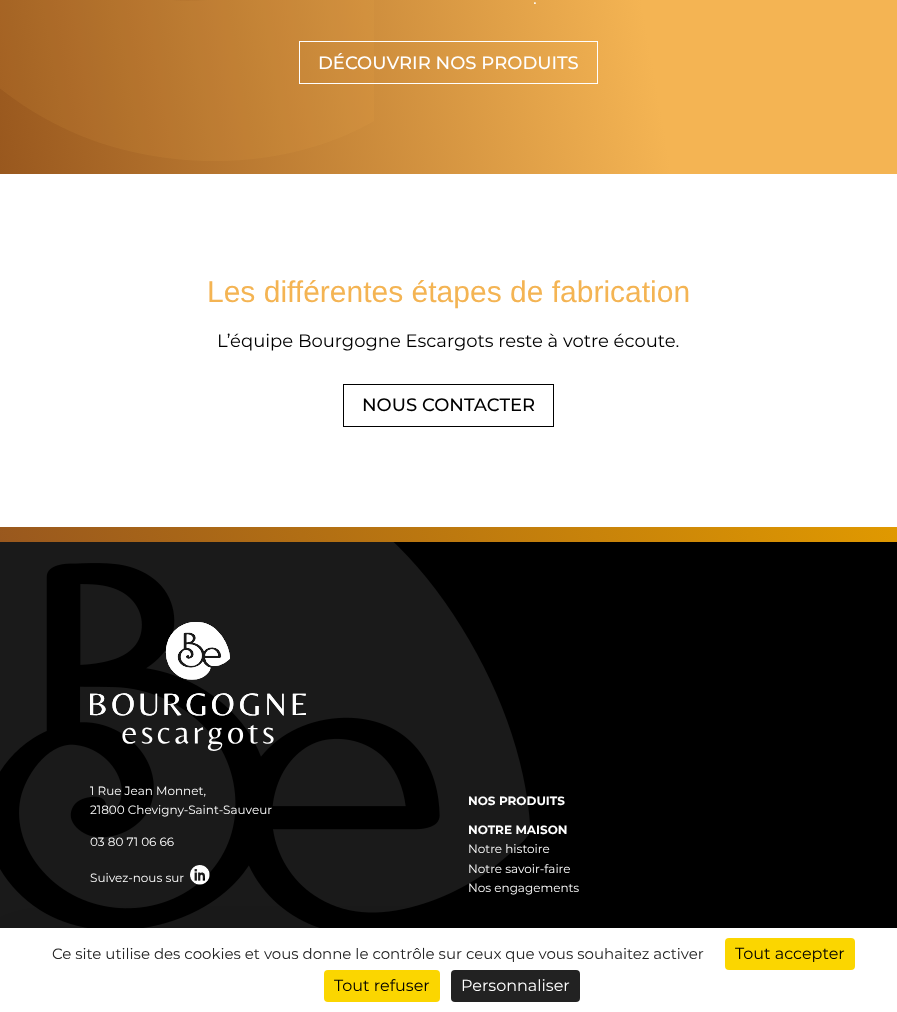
<svg xmlns="http://www.w3.org/2000/svg" width="897" height="1012" viewBox="0 0 897 1012">
  <defs>
    <linearGradient id="g1" gradientUnits="userSpaceOnUse" x1="-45" y1="-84" x2="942" y2="-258"><stop offset="0" stop-color="#99581e"/><stop offset="0.66" stop-color="#f4b453"/></linearGradient>
    <linearGradient id="g2" gradientUnits="userSpaceOnUse" x1="109" y1="731" x2="788" y2="338"><stop offset="0" stop-color="#99581e"/><stop offset="1" stop-color="#e09900"/></linearGradient>
    <filter id="blur1" x="-50%" y="-200%" width="200%" height="500%"><feGaussianBlur stdDeviation="30"/></filter>
  </defs>
  <rect width="100%" height="100%" fill="#ffffff"/>
  <rect x="0" y="0" width="897" height="174" fill="url(#g1)"/>
  <image x="0" y="0" width="374" height="161" href="img1.png"/>
  <text x="533" y="4" font-family="Montserrat" font-size="18" fill="#ffffff">.</text>
  <rect x="299.5" y="41.5" width="298" height="42" fill="none" stroke="#ffffff"/>
  <text x="318" y="69" font-family="Montserrat" font-size="18" font-weight="500" fill="#ffffff">DÉCOUVRIR NOS PRODUITS</text>
  <text x="207" y="302" font-family="Liberation Sans" font-size="30" fill="#f4b453">Les différentes étapes de fabrication</text>
  <text x="217" y="347" font-family="Montserrat" font-size="18" fill="#000000">L’équipe Bourgogne Escargots reste à votre écoute.</text>
  <rect x="343.5" y="384.5" width="210" height="42" fill="none" stroke="#000000"/>
  <text x="362" y="411" font-family="Montserrat" font-size="18" font-weight="500" fill="#000000">NOUS CONTACTER</text>
  <rect x="0" y="542" width="897" height="386" fill="#000000"/>
  <image x="0" y="542" width="531" height="386" href="img2.png"/>
  <rect x="0" y="527" width="897" height="15" fill="url(#g2)"/>
  <image x="90" y="622" width="216" height="129" href="img3.png"/>
  <text x="90" y="795" font-family="Montserrat" font-size="12" fill="#ffffff">1 Rue Jean Monnet,</text>
  <text x="90" y="814" font-family="Montserrat" font-size="12" fill="#ffffff">21800 Chevigny-Saint-Sauveur</text>
  <text x="90" y="846" font-family="Montserrat" font-size="12" fill="#ffffff">03 80 71 06 66</text>
  <text x="90" y="882" font-family="Montserrat" font-size="12" fill="#ffffff">Suivez-nous sur</text>
  <image x="190" y="865" width="20" height="20" href="img4.png"/>
  <text x="468" y="805" font-family="Montserrat" font-size="12" font-weight="bold" fill="#ffffff">NOS PRODUITS</text>
  <text x="468" y="834" font-family="Montserrat" font-size="12" font-weight="bold" fill="#ffffff">NOTRE MAISON</text>
  <text x="468" y="853" font-family="Montserrat" font-size="12" fill="#ffffff">Notre histoire</text>
  <text x="468" y="873" font-family="Montserrat" font-size="12" fill="#ffffff">Notre savoir-faire</text>
  <text x="468" y="892" font-family="Montserrat" font-size="12" fill="#ffffff">Nos engagements</text>
  <rect x="0" y="948" width="897" height="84" fill="#000000" fill-opacity="0.25" filter="url(#blur1)"/>
  <rect x="0" y="928" width="897" height="84" fill="#ffffff"/>
  <text x="52" y="959" font-family="Montserrat" font-size="15" fill="#222222">Ce site utilise des cookies et vous donne le contrôle sur ceux que vous souhaitez activer</text>
  <rect x="725" y="938" width="130" height="32" rx="4" fill="#fbd600"/>
  <text x="735" y="959" font-family="Montserrat" font-size="16" fill="#000000">Tout accepter</text>
  <rect x="324" y="970" width="116" height="32" rx="4" fill="#fbd600"/>
  <text x="334" y="991" font-family="Montserrat" font-size="16" fill="#000000">Tout refuser</text>
  <rect x="451" y="970" width="129" height="32" rx="4" fill="#222222"/>
  <text x="461" y="991" font-family="Montserrat" font-size="16" fill="#ffffff">Personnaliser</text>
</svg>
